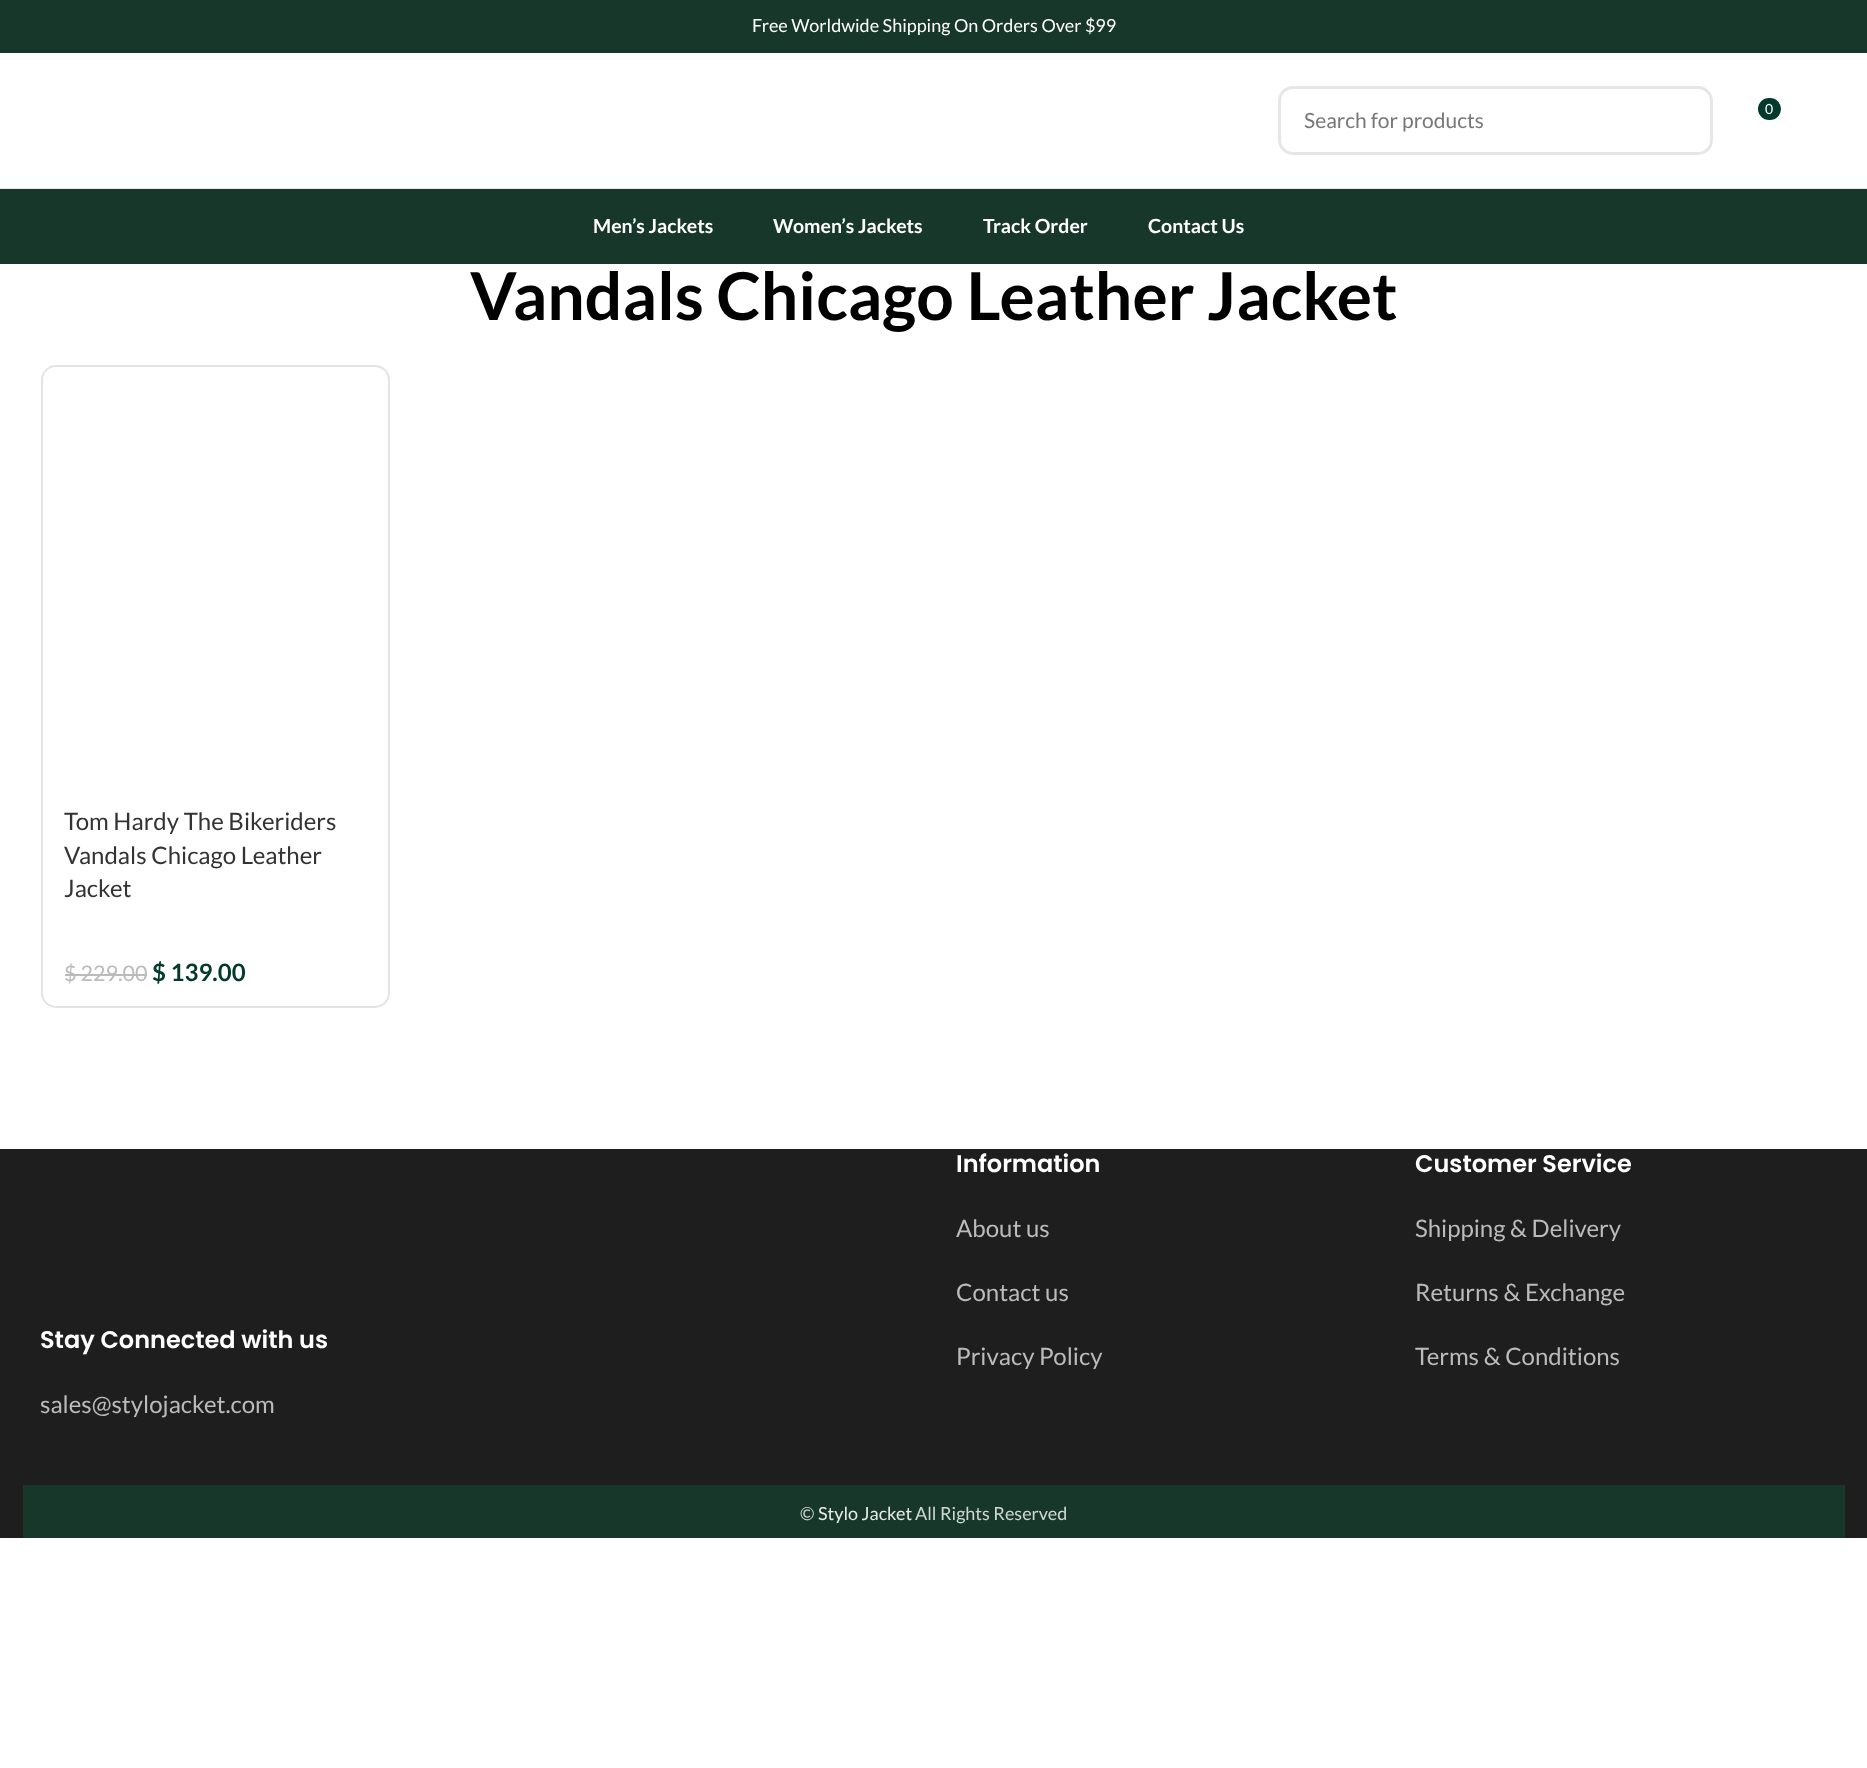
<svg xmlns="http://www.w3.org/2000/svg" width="1867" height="1768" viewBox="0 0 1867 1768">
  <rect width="100%" height="100%" fill="#ffffff"/>
  <rect x="0" y="0" width="1867" height="53" fill="#17372a"/>
  <text x="752" y="32" font-family="Lato" font-size="18" fill="#ffffff">Free Worldwide Shipping On Orders Over $99</text>
  <rect x="0" y="188" width="1867" height="1" fill="#e6e6e6"/>
  <rect x="1758" y="98" width="23" height="22" rx="11" fill="#033a2d"/>
  <text x="1765" y="114" font-family="Lato" font-size="14" fill="#ffffff">0</text>
  <rect x="1279.5" y="87.5" width="432" height="66" rx="13.5" fill="none" stroke="#e6e6e6" stroke-width="3"/>
  <text x="1304" y="128" font-family="Lato" font-size="21" fill="#777777">Search for products</text>
  <rect x="0" y="189" width="1867" height="75" fill="#17372a"/>
  <text x="593" y="233" font-family="Lato" font-size="19.5" font-weight="bold" fill="#ffffff">Men’s Jackets</text>
  <text x="773" y="233" font-family="Lato" font-size="19.5" font-weight="bold" fill="#ffffff">Women’s Jackets</text>
  <text x="983" y="233" font-family="Lato" font-size="19.5" font-weight="bold" fill="#ffffff">Track Order</text>
  <text x="1148" y="233" font-family="Lato" font-size="19.5" font-weight="bold" fill="#ffffff">Contact Us</text>
  <text x="470" y="320" font-family="Lato" font-size="66" font-weight="bold" fill="#000000">Vandals Chicago Leather Jacket</text>
  <rect x="42" y="366" width="347" height="641" rx="14" fill="none" stroke="#e4e4e4" stroke-width="2"/>
  <text x="64" y="830" font-family="Lato" font-size="24" fill="#333333">Tom Hardy The Bikeriders</text>
  <text x="64" y="864" font-family="Lato" font-size="24" fill="#333333">Vandals Chicago Leather</text>
  <text x="64" y="897" font-family="Lato" font-size="24" fill="#333333">Jacket</text>
  <text x="64" y="981" font-family="Lato" font-size="21.5" fill="#bbbbbb">$ 229.00</text>
  <rect x="65" y="974" width="82" height="2" fill="#bbbbbb"/>
  <text x="152" y="981" font-family="Lato" font-size="24" font-weight="bold" fill="#033a2d">$ 139.00</text>
  <rect x="0" y="1149" width="1867" height="389" fill="#1e1e1e"/>
  <text x="40" y="1348" font-family="Poppins" font-size="24" font-weight="600" fill="#ffffff">Stay Connected with us</text>
  <text x="40" y="1413" font-family="Lato" font-size="24" fill="#bbbbbb">sales@stylojacket.com</text>
  <text x="956" y="1172" font-family="Poppins" font-size="24" font-weight="600" fill="#ffffff">Information</text>
  <text x="956" y="1237" font-family="Lato" font-size="24" fill="#bbbbbb">About us</text>
  <text x="956" y="1301" font-family="Lato" font-size="24" fill="#bbbbbb">Contact us</text>
  <text x="956" y="1365" font-family="Lato" font-size="24" fill="#bbbbbb">Privacy Policy</text>
  <text x="1415" y="1172" font-family="Poppins" font-size="24" font-weight="600" fill="#ffffff">Customer Service</text>
  <text x="1415" y="1237" font-family="Lato" font-size="24" fill="#bbbbbb">Shipping &amp; Delivery</text>
  <text x="1415" y="1301" font-family="Lato" font-size="24" fill="#bbbbbb">Returns &amp; Exchange</text>
  <text x="1415" y="1365" font-family="Lato" font-size="24" fill="#bbbbbb">Terms &amp; Conditions</text>
  <rect x="23" y="1485" width="1822" height="53" fill="#17372a"/>
  <text x="800" y="1520" font-family="Lato" font-size="18" fill="#d1d7d4">©</text>
  <text x="818" y="1520" font-family="Lato" font-size="18" fill="#e8ebea">Stylo Jacket</text>
  <text x="915" y="1520" font-family="Lato" font-size="18" fill="#d1d7d4">All Rights Reserved</text>
</svg>
